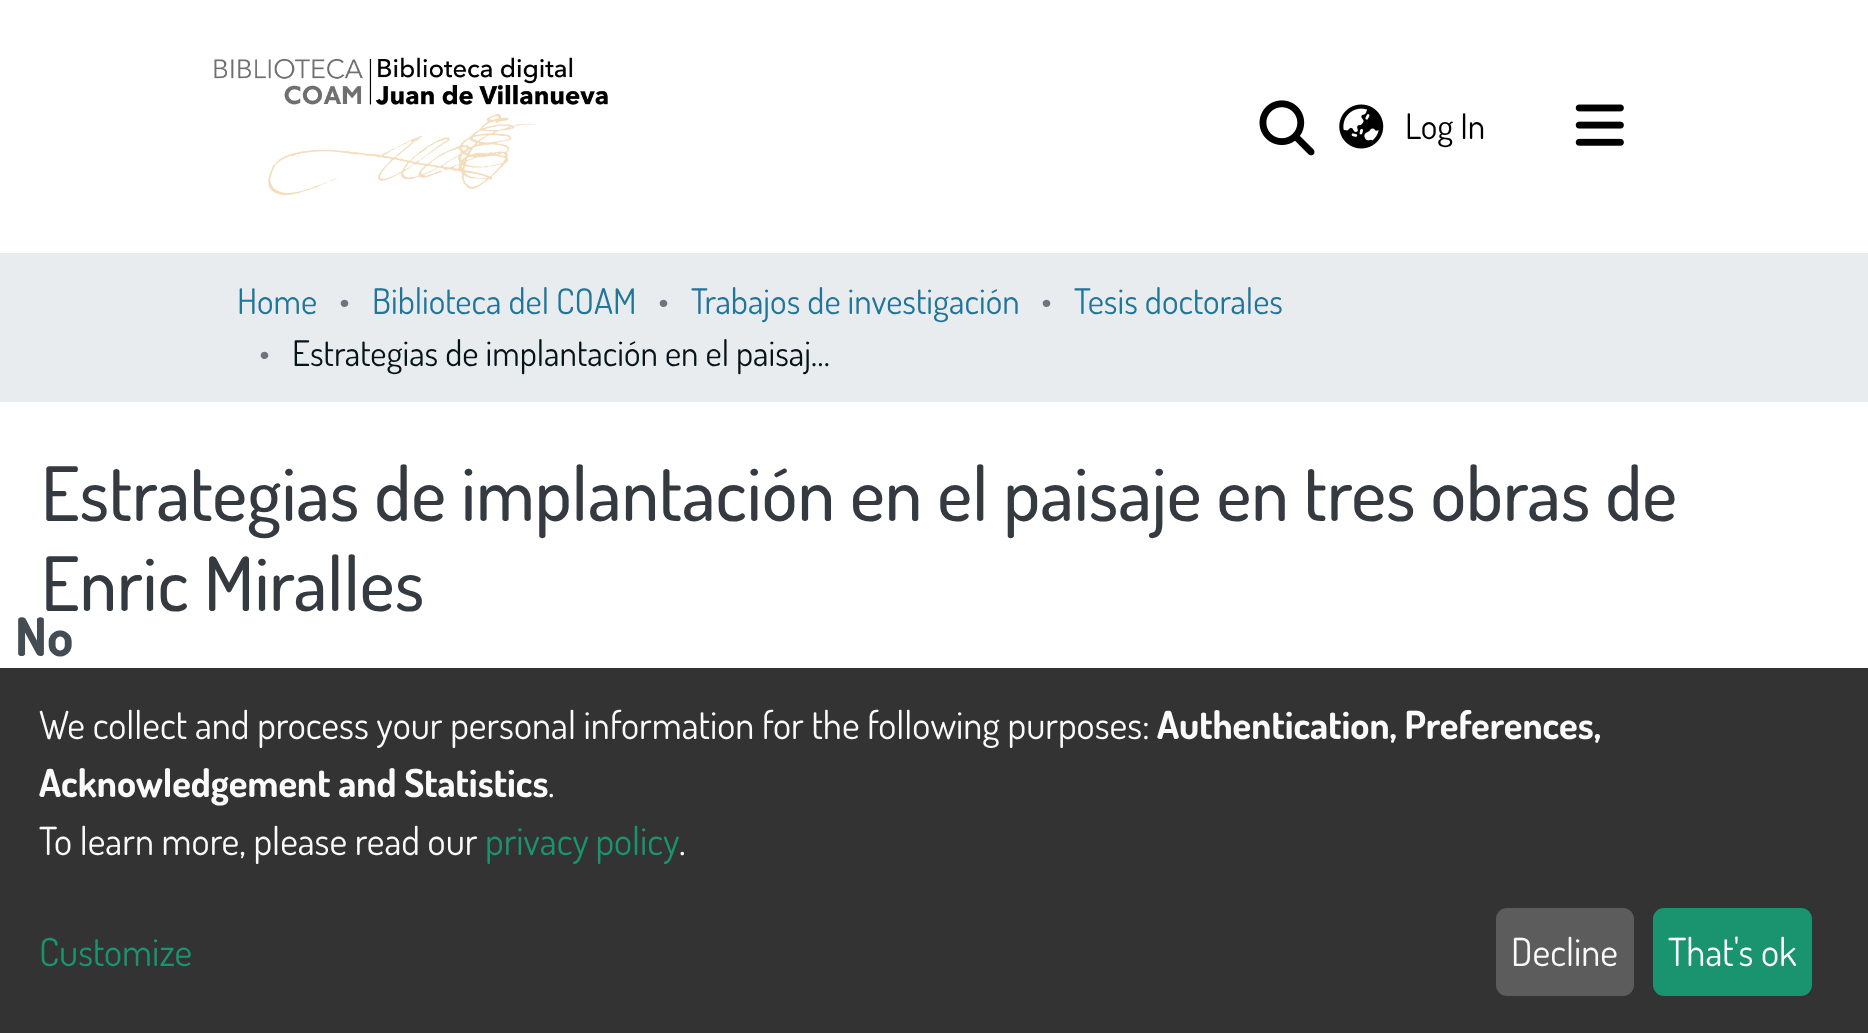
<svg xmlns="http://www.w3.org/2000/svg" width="1868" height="1033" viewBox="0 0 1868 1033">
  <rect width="100%" height="100%" fill="#ffffff"/>
  <image x="214" y="57" width="394" height="139" href="img1.png"/>
  <image x="1259" y="100" width="56" height="56" href="img2.png"/>
  <image x="1339" y="104" width="45" height="45" href="img3.png"/>
  <text x="1405" y="139" font-family="Dosis" font-size="35.25" fill="#000000">Log In</text>
  <image x="1575" y="104" width="49" height="42" href="img4.png"/>
  <rect x="0" y="253" width="1868" height="149" fill="#e9ecef"/>
  <text x="237" y="314" font-family="Dosis" font-size="35.25" fill="#207698">Home</text>
  <text x="339" y="314" font-family="Dosis" font-size="35.25" fill="#6c757d">•</text>
  <text x="372" y="314" font-family="Dosis" font-size="35.25" fill="#207698">Biblioteca del COAM</text>
  <text x="658" y="314" font-family="Dosis" font-size="35.25" fill="#6c757d">•</text>
  <text x="691" y="314" font-family="Dosis" font-size="35.25" fill="#207698">Trabajos de investigación</text>
  <text x="1041" y="314" font-family="Dosis" font-size="35.25" fill="#6c757d">•</text>
  <text x="1074" y="314" font-family="Dosis" font-size="35.25" fill="#207698">Tesis doctorales</text>
  <text x="259" y="366" font-family="Dosis" font-size="35.25" fill="#6c757d">•</text>
  <text x="292" y="366" font-family="Dosis" font-size="35.25" fill="#05141a">Estrategias de implantación en el paisaj…</text>
  <text x="41" y="521" font-family="Dosis" font-size="74.8" font-weight="500" fill="#343a40">Estrategias de implantación en el paisaje en tres obras de</text>
  <text x="41" y="611" font-family="Dosis" font-size="74.8" font-weight="500" fill="#343a40">Enric Miralles</text>
  <text x="15" y="656" font-family="Dosis" font-size="53" font-weight="bold" fill="#444c54">No</text>
  <rect x="0" y="668" width="1868" height="365" fill="#333333"/>
  <text x="39" y="739" font-family="Dosis" font-size="38.5" fill="#fafafa">We collect and process your personal information for the following purposes:</text>
  <text x="1157" y="739" font-family="Dosis" font-size="38.5" font-weight="bold" fill="#fafafa">Authentication, Preferences,</text>
  <text x="39" y="797" font-family="Dosis" font-size="38.5" font-weight="bold" fill="#fafafa">Acknowledgement and Statistics</text>
  <text x="548" y="797" font-family="Dosis" font-size="38.5" fill="#fafafa">.</text>
  <text x="39" y="855" font-family="Dosis" font-size="38.5" fill="#fafafa">To learn more, please read our</text>
  <text x="485" y="855" word-spacing="-1" font-family="Dosis" font-size="38.5" fill="#1a936f">privacy policy</text>
  <text x="679" y="855" font-family="Dosis" font-size="38.5" fill="#fafafa">.</text>
  <text x="39" y="966" font-family="Dosis" font-size="38.5" fill="#1a936f">Customize</text>
  <rect x="1496" y="908" width="138" height="88" rx="11" fill="#5c5c5c"/>
  <text x="1511" y="966" font-family="Dosis" font-size="38.5" fill="#fafafa">Decline</text>
  <rect x="1653" y="908" width="159" height="88" rx="11" fill="#1a936f"/>
  <text x="1668" y="966" font-family="Dosis" font-size="38.5" fill="#fafafa">That's ok</text>
</svg>
